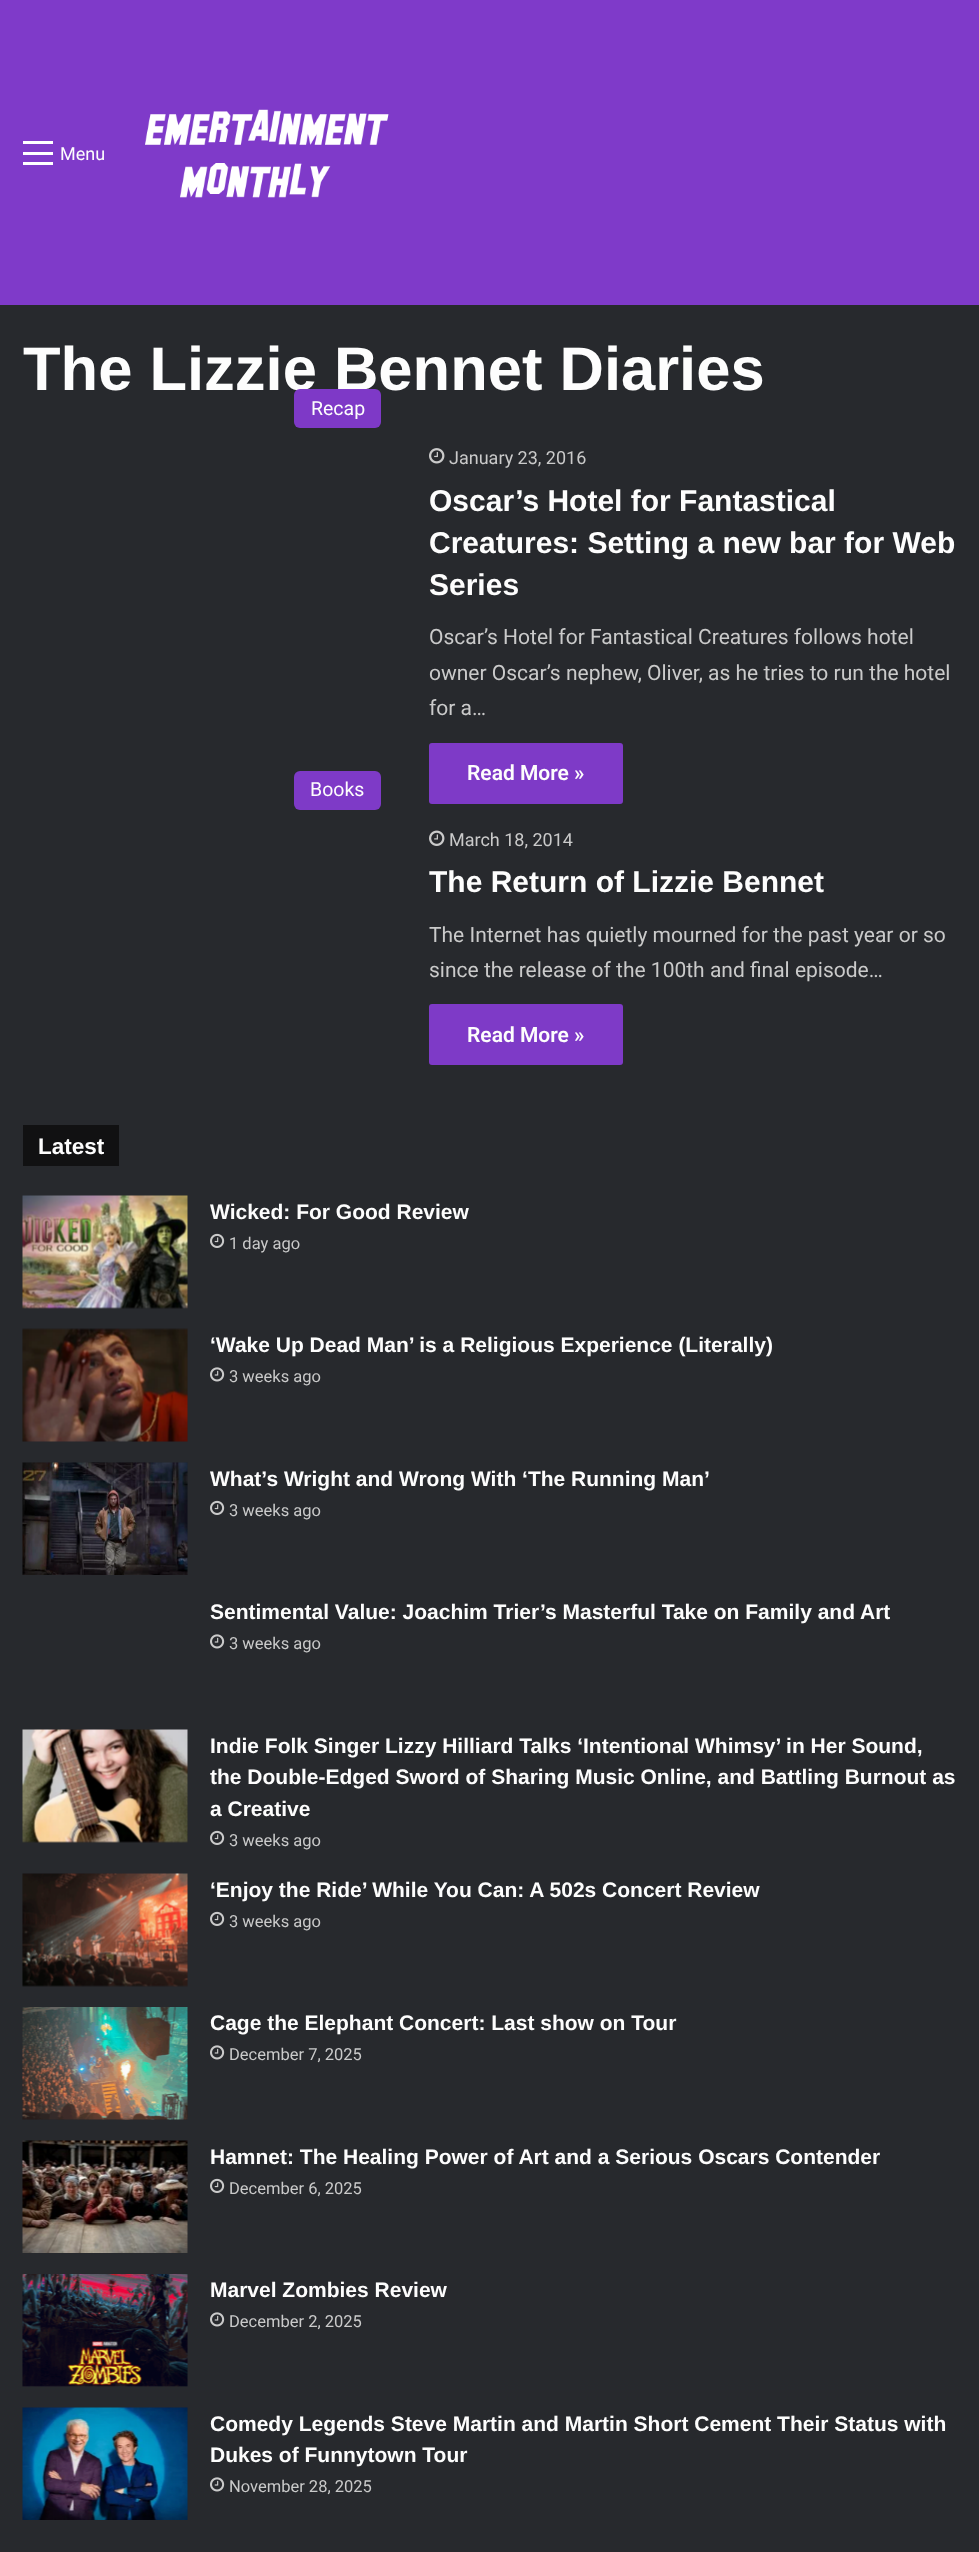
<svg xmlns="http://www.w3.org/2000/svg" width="979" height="2552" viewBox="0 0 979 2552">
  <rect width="100%" height="100%" fill="#27292d"/>
  <rect x="0" y="0" width="979" height="305" fill="#7f3ac9"/>
  <rect x="23" y="152" width="30" height="3" fill="#ffffff"/>
  <rect x="23" y="141" width="30" height="3" fill="#ffffff"/>
  <rect x="23" y="162" width="30" height="3" fill="#ffffff"/>
  <text x="60" y="160" font-family="Roboto" font-size="18" fill="#fdfdfd">Menu</text>
  <image x="145" y="109" width="244" height="89" href="img1.png"/>
  <text x="23" y="390" font-family="Liberation Sans" font-size="61.5" font-weight="bold" fill="#fdfdfd">The Lizzie Bennet Diaries</text>
  <rect x="294" y="389" width="87" height="39" rx="6" fill="#7f3ac9" fill-opacity="0.99"/>
  <text x="311" y="415" font-family="Roboto" font-size="19.5" fill="#fdfdfd">Recap</text>
  <image x="429" y="448" width="16" height="16" href="img2.png"/>
  <text x="449" y="464" font-family="Roboto" font-size="18" fill="#cacaca">January 23, 2016</text>
  <text x="429" y="511" font-family="Liberation Sans" font-size="30" font-weight="bold" fill="#fdfdfd">Oscar’s Hotel for Fantastical</text>
  <text x="429" y="553" font-family="Liberation Sans" font-size="30" font-weight="bold" fill="#fdfdfd">Creatures: Setting a new bar for Web</text>
  <text x="429" y="595" font-family="Liberation Sans" font-size="30" font-weight="bold" fill="#fdfdfd">Series</text>
  <text x="429" y="644" font-family="Roboto" font-size="21" fill="#cacaca">Oscar’s Hotel for Fantastical Creatures follows hotel</text>
  <text x="429" y="680" font-family="Roboto" font-size="21" fill="#cacaca">owner Oscar’s nephew, Oliver, as he tries to run the hotel</text>
  <text x="429" y="715" font-family="Roboto" font-size="21" fill="#cacaca">for a…</text>
  <rect x="429" y="743" width="194" height="61" rx="3" fill="#7e3ac7"/>
  <text x="467" y="780" font-family="Roboto" font-size="21" font-weight="600" fill="#fdfdfd">Read More »</text>
  <rect x="294" y="771" width="87" height="39" rx="6" fill="#7e3ac7"/>
  <text x="310" y="796" font-family="Roboto" font-size="19.5" fill="#fdfdfd">Books</text>
  <image x="429" y="830" width="16" height="16" href="img3.png"/>
  <text x="449" y="846" font-family="Roboto" font-size="18" fill="#cacaca">March 18, 2014</text>
  <text x="429" y="892" font-family="Liberation Sans" font-size="30" font-weight="bold" fill="#fdfdfd">The Return of Lizzie Bennet</text>
  <text x="429" y="942" font-family="Roboto" font-size="21" fill="#cacaca">The Internet has quietly mourned for the past year or so</text>
  <text x="429" y="977" font-family="Roboto" font-size="21" fill="#cacaca">since the release of the 100th and final episode…</text>
  <rect x="429" y="1004" width="194" height="61" rx="3" fill="#7e3ac7"/>
  <text x="467" y="1042" font-family="Roboto" font-size="21" font-weight="600" fill="#fdfdfd">Read More »</text>
  <rect x="23" y="1125" width="96" height="41" fill="#111112"/>
  <text x="38" y="1154" font-family="Liberation Sans" font-size="22.5" font-weight="bold" fill="#fdfdfd">Latest</text>
  <image x="22" y="1195" width="166" height="114" href="img4.png"/>
  <text x="210" y="1219" font-family="Liberation Sans" font-size="21" font-weight="bold" fill="#fdfdfd">Wicked: For Good Review</text>
  <image x="210" y="1233" width="15" height="15" href="img5.png"/>
  <text x="229" y="1249" font-family="Roboto" font-size="16.5" fill="#cacaca">1 day ago</text>
  <image x="22" y="1328" width="166" height="114" href="img6.png"/>
  <text x="210" y="1352" font-family="Liberation Sans" font-size="21" font-weight="bold" fill="#fdfdfd">‘Wake Up Dead Man’ is a Religious Experience (Literally)</text>
  <image x="210" y="1367" width="15" height="15" href="img7.png"/>
  <text x="229" y="1382" font-family="Roboto" font-size="16.5" fill="#cacaca">3 weeks ago</text>
  <image x="22" y="1462" width="166" height="113" href="img8.png"/>
  <text x="210" y="1486" font-family="Liberation Sans" font-size="21" font-weight="bold" fill="#fdfdfd">What’s Wright and Wrong With ‘The Running Man’</text>
  <image x="210" y="1500" width="15" height="15" href="img5.png"/>
  <text x="229" y="1516" font-family="Roboto" font-size="16.5" fill="#cacaca">3 weeks ago</text>
  <text x="210" y="1619" font-family="Liberation Sans" font-size="21" font-weight="bold" fill="#fdfdfd">Sentimental Value: Joachim Trier’s Masterful Take on Family and Art</text>
  <image x="210" y="1634" width="15" height="15" href="img7.png"/>
  <text x="229" y="1649" font-family="Roboto" font-size="16.5" fill="#cacaca">3 weeks ago</text>
  <image x="22" y="1729" width="166" height="114" href="img9.png"/>
  <text x="210" y="1753" font-family="Liberation Sans" font-size="21" font-weight="bold" fill="#fdfdfd">Indie Folk Singer Lizzy Hilliard Talks ‘Intentional Whimsy’ in Her Sound,</text>
  <text x="210" y="1784" font-family="Liberation Sans" font-size="21" font-weight="bold" fill="#fdfdfd">the Double-Edged Sword of Sharing Music Online, and Battling Burnout as</text>
  <text x="210" y="1816" font-family="Liberation Sans" font-size="21" font-weight="bold" fill="#fdfdfd">a Creative</text>
  <image x="210" y="1830" width="15" height="15" href="img5.png"/>
  <text x="229" y="1846" font-family="Roboto" font-size="16.5" fill="#cacaca">3 weeks ago</text>
  <image x="22" y="1873" width="166" height="114" href="img10.png"/>
  <text x="210" y="1897" font-family="Liberation Sans" font-size="21" font-weight="bold" fill="#fdfdfd">‘Enjoy the Ride’ While You Can: A 502s Concert Review</text>
  <image x="210" y="1911" width="15" height="15" href="img5.png"/>
  <text x="229" y="1927" font-family="Roboto" font-size="16.5" fill="#cacaca">3 weeks ago</text>
  <image x="22" y="2007" width="166" height="113" href="img11.png"/>
  <text x="210" y="2030" font-family="Liberation Sans" font-size="21" font-weight="bold" fill="#fdfdfd">Cage the Elephant Concert: Last show on Tour</text>
  <image x="210" y="2045" width="15" height="15" href="img7.png"/>
  <text x="229" y="2060" font-family="Roboto" font-size="16.5" fill="#cacaca">December 7, 2025</text>
  <image x="22" y="2140" width="166" height="113" href="img12.png"/>
  <text x="210" y="2164" font-family="Liberation Sans" font-size="21" font-weight="bold" fill="#fdfdfd">Hamnet: The Healing Power of Art and a Serious Oscars Contender</text>
  <image x="210" y="2178" width="15" height="15" href="img5.png"/>
  <text x="229" y="2194" font-family="Roboto" font-size="16.5" fill="#cacaca">December 6, 2025</text>
  <image x="22" y="2274" width="166" height="113" href="img13.png"/>
  <text x="210" y="2297" font-family="Liberation Sans" font-size="21" font-weight="bold" fill="#fdfdfd">Marvel Zombies Review</text>
  <image x="210" y="2312" width="15" height="15" href="img7.png"/>
  <text x="229" y="2327" font-family="Roboto" font-size="16.5" fill="#cacaca">December 2, 2025</text>
  <image x="22" y="2407" width="166" height="113" href="img14.png"/>
  <text x="210" y="2431" font-family="Liberation Sans" font-size="21" font-weight="bold" fill="#fdfdfd">Comedy Legends Steve Martin and Martin Short Cement Their Status with</text>
  <text x="210" y="2462" font-family="Liberation Sans" font-size="21" font-weight="bold" fill="#fdfdfd">Dukes of Funnytown Tour</text>
  <image x="210" y="2477" width="15" height="15" href="img7.png"/>
  <text x="229" y="2492" font-family="Roboto" font-size="16.5" fill="#cacaca">November 28, 2025</text>
</svg>
